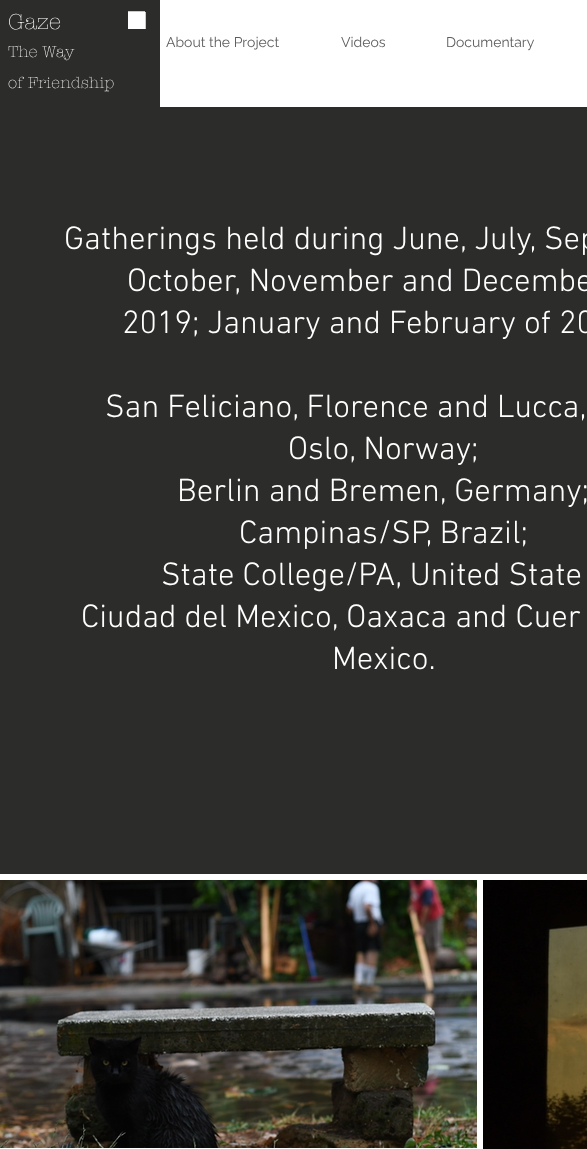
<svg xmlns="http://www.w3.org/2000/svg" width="587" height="1149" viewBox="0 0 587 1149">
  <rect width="100%" height="100%" fill="#ffffff"/>
  <rect x="0" y="0" width="160" height="107" fill="#2c2c2b"/>
  <text x="8" y="29" font-family="'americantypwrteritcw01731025'" font-size="22" font-weight="300" fill="#ffffff">Gaze</text>
  <text x="8" y="57" font-family="'americantypwrteritcw01731025'" font-size="16" font-weight="300" fill="#ffffff">The Way</text>
  <text x="8" y="88" font-family="'americantypwrteritcw01731025'" font-size="16" font-weight="300" fill="#ffffff">of Friendship</text>
  <rect x="128" y="12" width="17" height="17" fill="#ffffff"/>
  <path d="M128 12H145V29V12Z" fill="none" stroke="#ffffff"/>
  <text x="166" y="47" font-family="Raleway" font-size="14" fill="#5e5d5d">About the Project</text>
  <text x="341" y="47" font-family="Raleway" font-size="14" fill="#5e5d5d">Videos</text>
  <text x="446" y="47" font-family="Raleway" font-size="14" fill="#5e5d5d">Documentary</text>
  <rect x="0" y="107" width="587" height="767" fill="#2c2c2b"/>
  <text x="64" y="249" font-family="'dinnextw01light'" font-size="32.9" font-weight="300" fill="#ffffff">Gatherings held during June, July, Sep</text>
  <text x="127" y="291" font-family="'dinnextw01light'" font-size="32.9" font-weight="300" fill="#ffffff">October, November and Decembe</text>
  <text x="122" y="333" font-family="'dinnextw01light'" font-size="32.9" font-weight="300" fill="#ffffff">2019; January and February of 20</text>
  <text x="105" y="417" font-family="'dinnextw01light'" font-size="32.9" font-weight="300" fill="#ffffff">San Feliciano, Florence and Lucca,</text>
  <text x="288" y="459" font-family="'dinnextw01light'" font-size="32.9" font-weight="300" fill="#ffffff">Oslo, Norway;</text>
  <text x="177" y="501" font-family="'dinnextw01light'" font-size="32.9" font-weight="300" fill="#ffffff">Berlin and Bremen, Germany;</text>
  <text x="239" y="543" font-family="'dinnextw01light'" font-size="32.9" font-weight="300" fill="#ffffff">Campinas/SP, Brazil;</text>
  <text x="161" y="585" font-family="'dinnextw01light'" font-size="32.9" font-weight="300" fill="#ffffff">State College/PA, United State</text>
  <text x="81" y="627" font-family="'dinnextw01light'" font-size="32.9" font-weight="300" fill="#ffffff">Ciudad del Mexico, Oaxaca and Cuer</text>
  <text x="332" y="669" font-family="'dinnextw01light'" font-size="32.9" font-weight="300" fill="#ffffff">Mexico.</text>
  <image x="0" y="880" width="477" height="268" href="img1.png"/>
  <image x="483" y="880" width="104" height="269" href="img2.png"/>
</svg>
